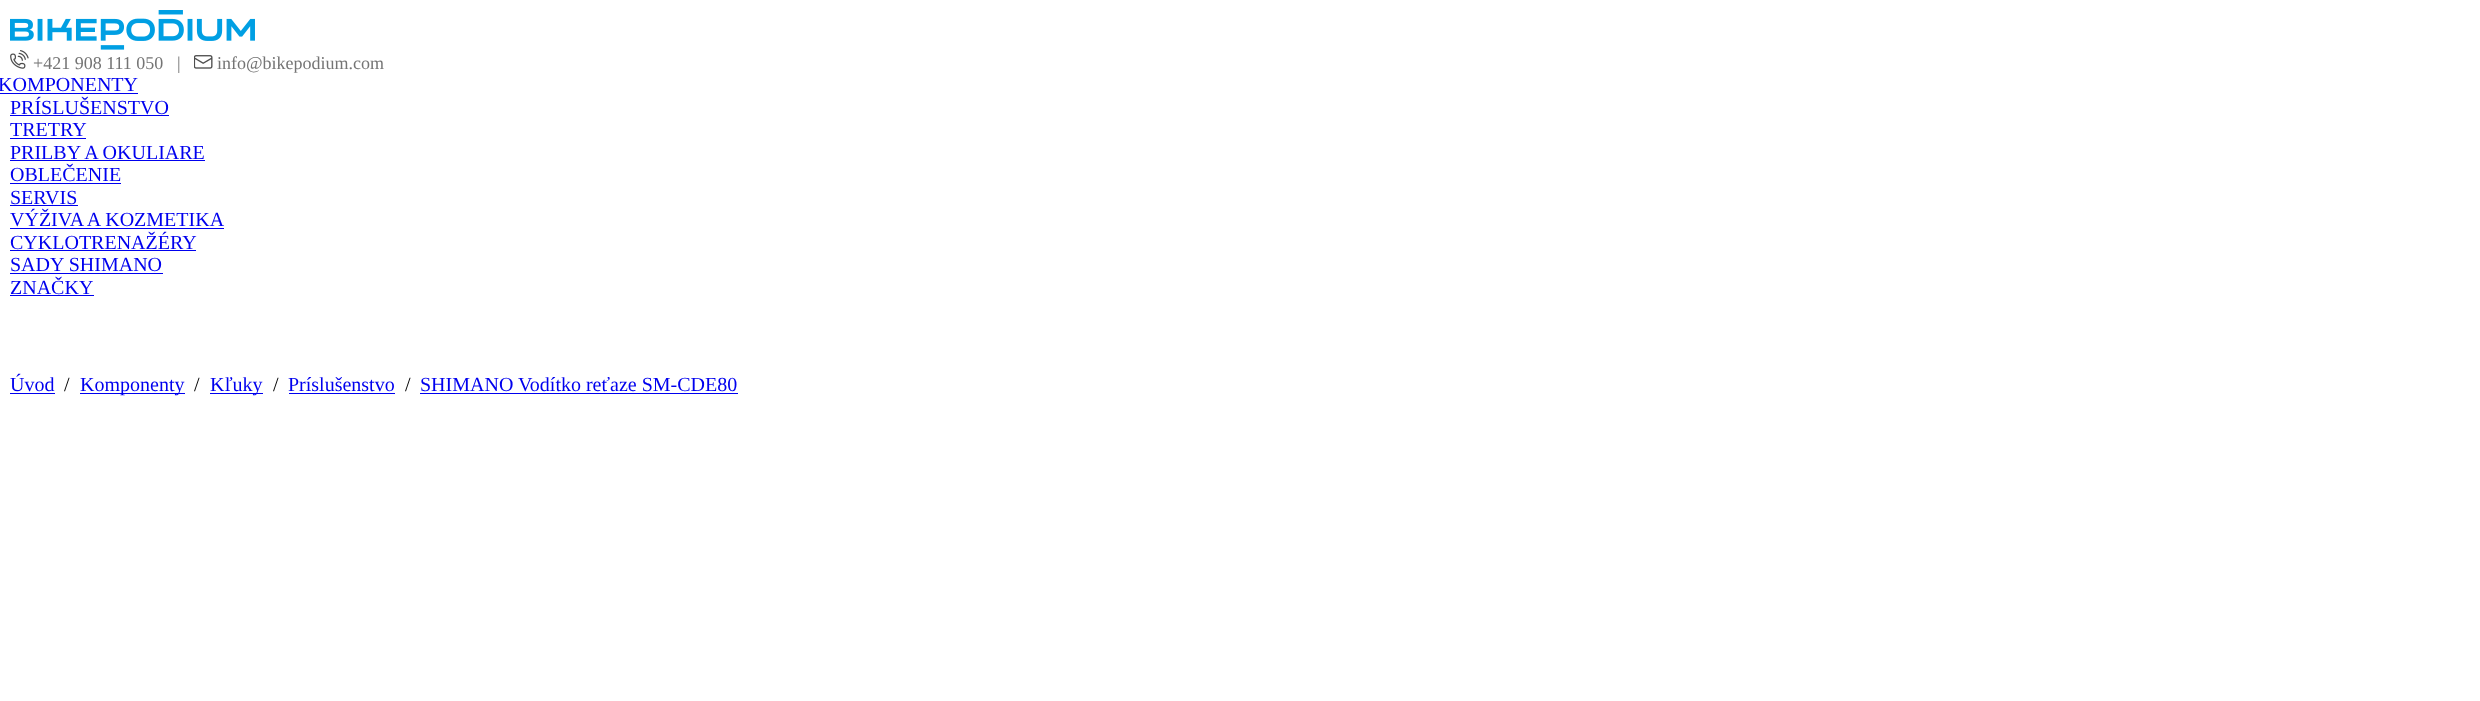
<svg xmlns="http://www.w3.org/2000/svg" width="2480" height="701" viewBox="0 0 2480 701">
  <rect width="100%" height="100%" fill="#ffffff"/>
  <image x="10" y="10" width="245" height="40" href="img1.png"/>
  <image x="10" y="50" width="19" height="19" href="img2.png"/>
  <text x="33" y="69" font-family="Liberation Serif" font-size="18" fill="#747474">+421 908 111 050</text>
  <text x="177" y="69" font-family="Liberation Serif" font-size="18" fill="#747474">|</text>
  <image x="194" y="55" width="19" height="14" href="img3.png"/>
  <text x="217" y="69" font-family="Liberation Serif" font-size="18" fill="#747474">info@bikepodium.com</text>
  <text x="-2" y="91" font-family="Liberation Serif" font-size="20" fill="#0000ee">KOMPONENTY</text>
  <rect x="0" y="93" width="138" height="1" fill="#0000ee"/>
  <text x="10" y="114" font-family="Liberation Serif" font-size="20" fill="#0000ee">PRÍSLUŠENSTVO</text>
  <rect x="10" y="115" width="159" height="1" fill="#0000ee"/>
  <text x="10" y="136" font-family="Liberation Serif" font-size="20" fill="#0000ee">TRETRY</text>
  <rect x="10" y="138" width="76" height="1" fill="#0000ee"/>
  <text x="10" y="159" font-family="Liberation Serif" font-size="20" fill="#0000ee">PRILBY A OKULIARE</text>
  <rect x="10" y="160" width="195" height="1" fill="#0000ee"/>
  <text x="10" y="181" font-family="Liberation Serif" font-size="20" fill="#0000ee">OBLEČENIE</text>
  <rect x="10" y="183" width="111" height="1" fill="#0000ee"/>
  <text x="10" y="204" font-family="Liberation Serif" font-size="20" fill="#0000ee">SERVIS</text>
  <rect x="10" y="205" width="68" height="1" fill="#0000ee"/>
  <text x="10" y="226" font-family="Liberation Serif" font-size="20" fill="#0000ee">VÝŽIVA A KOZMETIKA</text>
  <rect x="10" y="228" width="214" height="1" fill="#0000ee"/>
  <text x="10" y="249" font-family="Liberation Serif" font-size="20" fill="#0000ee">CYKLOTRENAŽÉRY</text>
  <rect x="10" y="250" width="186" height="1" fill="#0000ee"/>
  <text x="10" y="271" font-family="Liberation Serif" font-size="20" fill="#0000ee">SADY SHIMANO</text>
  <rect x="10" y="273" width="153" height="1" fill="#0000ee"/>
  <text x="10" y="294" font-family="Liberation Serif" font-size="20" fill="#0000ee">ZNAČKY</text>
  <rect x="10" y="295" width="84" height="1" fill="#0000ee"/>
  <text x="10" y="391" font-family="Liberation Serif" font-size="20" fill="#0000ee">Úvod</text>
  <rect x="10" y="393" width="45" height="1" fill="#0000ee"/>
  <text x="64" y="391" font-family="Liberation Serif" font-size="20" fill="#000000">/</text>
  <rect x="80" y="393" width="105" height="1" fill="#0000ee"/>
  <text x="80" y="391" font-family="Liberation Serif" font-size="20" fill="#0000ee">Komponenty</text>
  <text x="194" y="391" font-family="Liberation Serif" font-size="20" fill="#000000">/</text>
  <rect x="210" y="393" width="53" height="1" fill="#0000ee"/>
  <text x="210" y="391" font-family="Liberation Serif" font-size="20" fill="#0000ee">Kľuky</text>
  <text x="273" y="391" font-family="Liberation Serif" font-size="20" fill="#000000">/</text>
  <text x="288" y="391" font-family="Liberation Serif" font-size="20" fill="#0000ee">Príslušenstvo</text>
  <rect x="289" y="393" width="106" height="1" fill="#0000ee"/>
  <text x="405" y="391" font-family="Liberation Serif" font-size="20" fill="#000000">/</text>
  <text x="420" y="391" font-family="Liberation Serif" font-size="20" fill="#0000ee">SHIMANO Vodítko reťaze SM-CDE80</text>
  <rect x="420" y="393" width="318" height="1" fill="#0000ee"/>
</svg>
